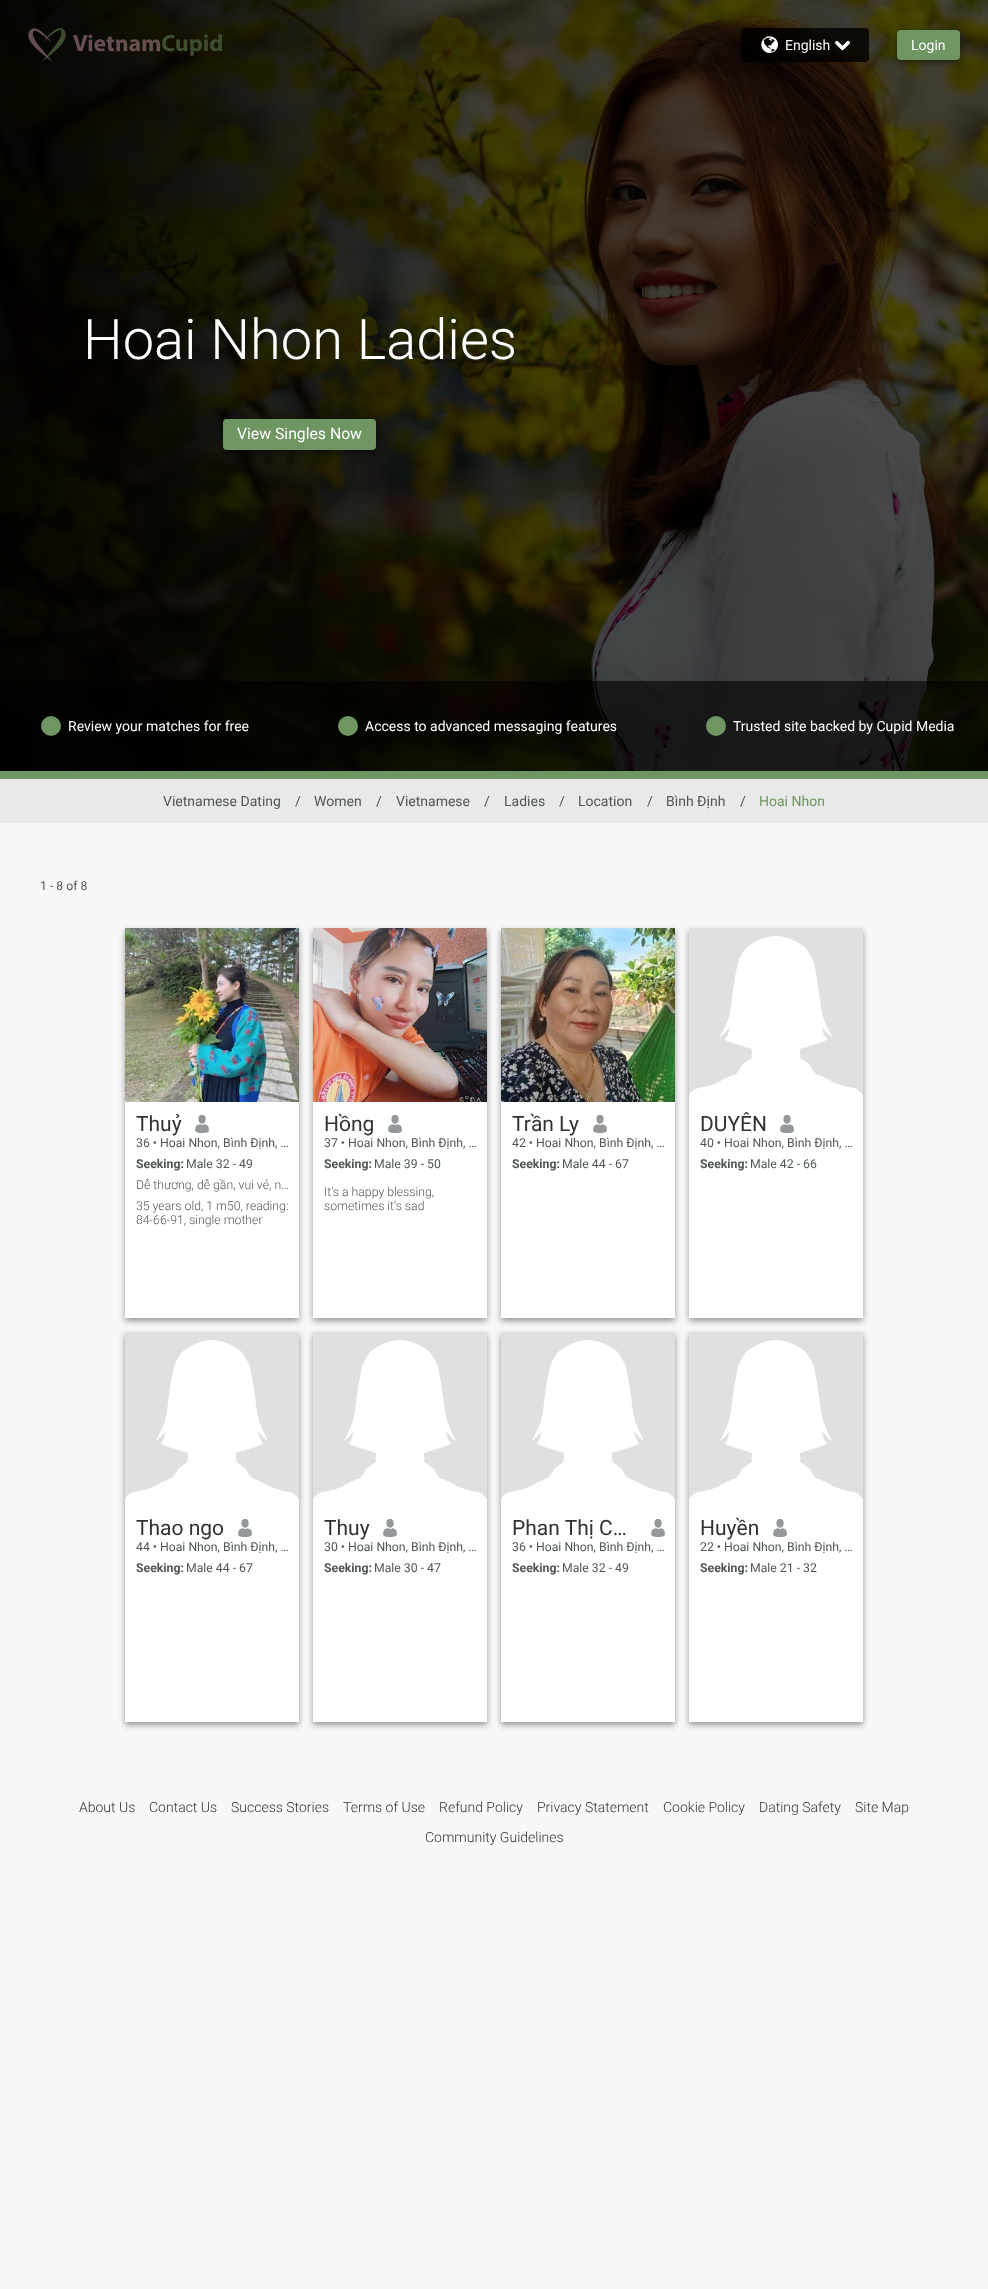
<svg xmlns="http://www.w3.org/2000/svg" width="988" height="2289" viewBox="0 0 988 2289">
  <defs>
    <filter id="blur1" x="-50%" y="-200%" width="200%" height="500%"><feGaussianBlur stdDeviation="3"/></filter>
  </defs>
  <rect width="100%" height="100%" fill="#f8f8f8"/>
  <image x="0" y="0" width="988" height="771" href="img5.png"/>
  <image x="28" y="28" width="38" height="34" href="img1.png"/>
  <image x="73" y="34" width="149" height="22" href="img2.png"/>
  <rect x="741" y="28" width="128" height="34" rx="4" fill="#000000" fill-opacity="0.8"/>
  <image x="761" y="36" width="17" height="17" href="img3.png"/>
  <text x="785" y="50" font-family="Roboto" font-size="14" fill="#ffffff">English</text>
  <image x="835" y="40" width="15" height="11" href="img4.png"/>
  <rect x="897" y="33" width="63" height="30" rx="4" fill="#000000" fill-opacity="0.4" filter="url(#blur1)"/>
  <rect x="897" y="30" width="63" height="30" rx="4" fill="#6f9562"/>
  <text x="911" y="50" font-family="Roboto" font-size="14" fill="#ffffff">Login</text>
  <text x="83" y="359" font-family="Roboto" font-size="56" font-weight="300" fill="#ffffff">Hoai Nhon Ladies</text>
  <rect x="223" y="422" width="153" height="31" rx="4" fill="#000000" fill-opacity="0.4" filter="url(#blur1)"/>
  <rect x="223" y="419" width="153" height="31" rx="4" fill="#6f9562"/>
  <text x="237" y="439" font-family="Roboto" font-size="15.75" fill="#ffffff">View Singles Now</text>
  <rect x="0" y="681" width="988" height="90" fill="#000000" fill-opacity="0.6"/>
  <circle cx="51" cy="726" r="10" fill="#6f9562"/>
  <text x="68" y="731" font-family="Roboto" font-size="14" fill="#ffffff">Review your matches for free</text>
  <circle cx="348" cy="726" r="10" fill="#6f9562"/>
  <text x="365" y="731" font-family="Roboto" font-size="14" fill="#ffffff">Access to advanced messaging features</text>
  <circle cx="716" cy="726" r="10" fill="#6f9562"/>
  <text x="733" y="731" font-family="Roboto" font-size="14" fill="#ffffff">Trusted site backed by Cupid Media</text>
  <rect x="0" y="771" width="988" height="8" fill="#6f9562"/>
  <rect x="0" y="779" width="988" height="44" fill="#e9e9e9"/>
  <text x="163" y="806" font-family="Roboto" font-size="14" fill="#505656">Vietnamese Dating</text>
  <text x="295" y="806" font-family="Roboto" font-size="14" fill="#505656">/</text>
  <text x="314" y="806" font-family="Roboto" font-size="14" fill="#505656">Women</text>
  <text x="376" y="806" font-family="Roboto" font-size="14" fill="#505656">/</text>
  <text x="396" y="806" font-family="Roboto" font-size="14" fill="#505656">Vietnamese</text>
  <text x="484" y="806" font-family="Roboto" font-size="14" fill="#505656">/</text>
  <text x="504" y="806" font-family="Roboto" font-size="14" fill="#505656">Ladies</text>
  <text x="559" y="806" font-family="Roboto" font-size="14" fill="#505656">/</text>
  <text x="578" y="806" font-family="Roboto" font-size="14" fill="#505656">Location</text>
  <text x="647" y="806" font-family="Roboto" font-size="14" fill="#505656">/</text>
  <text x="666" y="806" font-family="Roboto" font-size="14" fill="#505656">Bình Ðịnh</text>
  <text x="740" y="806" font-family="Roboto" font-size="14" fill="#505656">/</text>
  <text x="759" y="806" font-family="Roboto" font-size="14" fill="#6f9562">Hoai Nhon</text>
  <text x="40" y="890" font-family="Roboto" font-size="12.25" fill="#505656">1 - 8 of 8</text>
  <rect x="125" y="931" width="174" height="390" fill="#000000" fill-opacity="0.4" filter="url(#blur1)"/>
  <rect x="125" y="1102" width="174" height="216" fill="#ffffff"/>
  <image x="125" y="928" width="174" height="174" href="img6.png"/>
  <text x="136" y="1131" font-family="Roboto" font-size="21" fill="#323232">Thuỷ</text>
  <image x="195" y="1115" width="14" height="18" href="img7.png"/>
  <text x="136" y="1147" font-family="Roboto" font-size="12.25" fill="#505656">36 • Hoai Nhon, Bình Ðịnh, …</text>
  <text x="136" y="1168" font-family="Roboto" font-size="12.25" font-weight="bold" fill="#505656">Seeking:</text>
  <text x="186" y="1168" font-family="Roboto" font-size="12.25" fill="#505656">Male 32 - 49</text>
  <text x="136" y="1189" font-family="Roboto" font-size="12.25" font-weight="300" fill="#505656">Dễ thương, dễ gần, vui vẻ, n…</text>
  <text x="136" y="1210" font-family="Roboto" font-size="12.25" font-weight="300" fill="#505656">35 years old, 1 m50, reading:</text>
  <text x="136" y="1224" font-family="Roboto" font-size="12.25" font-weight="300" fill="#505656">84-66-91, single mother</text>
  <rect x="313" y="931" width="174" height="390" fill="#000000" fill-opacity="0.4" filter="url(#blur1)"/>
  <rect x="313" y="1102" width="174" height="216" fill="#ffffff"/>
  <image x="313" y="928" width="174" height="174" href="img8.png"/>
  <text x="324" y="1131" font-family="Roboto" font-size="21" fill="#323232">Hồng</text>
  <image x="388" y="1115" width="14" height="18" href="img7.png"/>
  <text x="324" y="1147" font-family="Roboto" font-size="12.25" fill="#505656">37 • Hoai Nhon, Bình Ðịnh, …</text>
  <text x="324" y="1168" font-family="Roboto" font-size="12.25" font-weight="bold" fill="#505656">Seeking:</text>
  <text x="374" y="1168" font-family="Roboto" font-size="12.25" fill="#505656">Male 39 - 50</text>
  <text x="324" y="1196" font-family="Roboto" font-size="12.25" font-weight="300" fill="#505656">It's a happy blessing,</text>
  <text x="324" y="1210" font-family="Roboto" font-size="12.25" font-weight="300" fill="#505656">sometimes it's sad</text>
  <rect x="501" y="931" width="174" height="390" fill="#000000" fill-opacity="0.4" filter="url(#blur1)"/>
  <rect x="501" y="1102" width="174" height="216" fill="#ffffff"/>
  <image x="501" y="928" width="174" height="174" href="img9.png"/>
  <text x="512" y="1131" font-family="Roboto" font-size="21" fill="#323232">Trần Ly</text>
  <image x="593" y="1115" width="14" height="18" href="img7.png"/>
  <text x="512" y="1147" font-family="Roboto" font-size="12.25" fill="#505656">42 • Hoai Nhon, Bình Ðịnh, …</text>
  <text x="512" y="1168" font-family="Roboto" font-size="12.25" font-weight="bold" fill="#505656">Seeking:</text>
  <text x="562" y="1168" font-family="Roboto" font-size="12.25" fill="#505656">Male 44 - 67</text>
  <rect x="689" y="931" width="174" height="390" fill="#000000" fill-opacity="0.4" filter="url(#blur1)"/>
  <rect x="689" y="1102" width="174" height="216" fill="#ffffff"/>
  <rect x="689" y="928" width="174" height="167" fill="#e0e0e0"/>
  <image x="689" y="936" width="174" height="166" href="img10.png"/>
  <text x="700" y="1131" font-family="Roboto" font-size="21" fill="#323232">DUYÊN</text>
  <image x="780" y="1115" width="14" height="18" href="img7.png"/>
  <text x="700" y="1147" font-family="Roboto" font-size="12.25" fill="#505656">40 • Hoai Nhon, Bình Ðịnh, …</text>
  <text x="700" y="1168" font-family="Roboto" font-size="12.25" font-weight="bold" fill="#505656">Seeking:</text>
  <text x="750" y="1168" font-family="Roboto" font-size="12.25" fill="#505656">Male 42 - 66</text>
  <rect x="125" y="1335" width="174" height="390" fill="#000000" fill-opacity="0.4" filter="url(#blur1)"/>
  <rect x="125" y="1506" width="174" height="216" fill="#ffffff"/>
  <rect x="125" y="1332" width="174" height="167" fill="#e0e0e0"/>
  <image x="125" y="1340" width="174" height="166" href="img11.png"/>
  <text x="136" y="1535" font-family="Roboto" font-size="21" fill="#323232">Thao ngo</text>
  <image x="238" y="1519" width="14" height="18" href="img12.png"/>
  <text x="136" y="1551" font-family="Roboto" font-size="12.25" fill="#505656">44 • Hoai Nhon, Bình Ðịnh, …</text>
  <text x="136" y="1572" font-family="Roboto" font-size="12.25" font-weight="bold" fill="#505656">Seeking:</text>
  <text x="186" y="1572" font-family="Roboto" font-size="12.25" fill="#505656">Male 44 - 67</text>
  <rect x="313" y="1335" width="174" height="390" fill="#000000" fill-opacity="0.4" filter="url(#blur1)"/>
  <rect x="313" y="1506" width="174" height="216" fill="#ffffff"/>
  <rect x="313" y="1332" width="174" height="167" fill="#e0e0e0"/>
  <image x="313" y="1340" width="174" height="166" href="img13.png"/>
  <text x="324" y="1535" font-family="Roboto" font-size="21" fill="#323232">Thuy</text>
  <image x="383" y="1519" width="14" height="18" href="img12.png"/>
  <text x="324" y="1551" font-family="Roboto" font-size="12.25" fill="#505656">30 • Hoai Nhon, Bình Ðịnh, …</text>
  <text x="324" y="1572" font-family="Roboto" font-size="12.25" font-weight="bold" fill="#505656">Seeking:</text>
  <text x="374" y="1572" font-family="Roboto" font-size="12.25" fill="#505656">Male 30 - 47</text>
  <rect x="501" y="1335" width="174" height="390" fill="#000000" fill-opacity="0.4" filter="url(#blur1)"/>
  <rect x="501" y="1506" width="174" height="216" fill="#ffffff"/>
  <rect x="501" y="1332" width="174" height="167" fill="#e0e0e0"/>
  <image x="501" y="1340" width="174" height="166" href="img14.png"/>
  <text x="512" y="1535" font-family="Roboto" font-size="21" fill="#323232">Phan Thị C…</text>
  <image x="651" y="1519" width="14" height="18" href="img12.png"/>
  <text x="512" y="1551" font-family="Roboto" font-size="12.25" fill="#505656">36 • Hoai Nhon, Bình Ðịnh, …</text>
  <text x="512" y="1572" font-family="Roboto" font-size="12.25" font-weight="bold" fill="#505656">Seeking:</text>
  <text x="562" y="1572" font-family="Roboto" font-size="12.25" fill="#505656">Male 32 - 49</text>
  <rect x="689" y="1335" width="174" height="390" fill="#000000" fill-opacity="0.4" filter="url(#blur1)"/>
  <rect x="689" y="1506" width="174" height="216" fill="#ffffff"/>
  <rect x="689" y="1332" width="174" height="167" fill="#e0e0e0"/>
  <image x="689" y="1340" width="174" height="166" href="img15.png"/>
  <text x="700" y="1535" font-family="Roboto" font-size="21" fill="#323232">Huyền</text>
  <image x="773" y="1519" width="14" height="18" href="img12.png"/>
  <text x="700" y="1551" font-family="Roboto" font-size="12.25" fill="#505656">22 • Hoai Nhon, Bình Ðịnh, …</text>
  <text x="700" y="1572" font-family="Roboto" font-size="12.25" font-weight="bold" fill="#505656">Seeking:</text>
  <text x="750" y="1572" font-family="Roboto" font-size="12.25" fill="#505656">Male 21 - 32</text>
  <text x="79" y="1812" font-family="Roboto" font-size="14" font-weight="300" fill="#323232">About Us</text>
  <text x="149" y="1812" font-family="Roboto" font-size="14" font-weight="300" fill="#323232">Contact Us</text>
  <text x="231" y="1812" font-family="Roboto" font-size="14" font-weight="300" fill="#323232">Success Stories</text>
  <text x="343" y="1812" font-family="Roboto" font-size="14" font-weight="300" fill="#323232">Terms of Use</text>
  <text x="439" y="1812" font-family="Roboto" font-size="14" font-weight="300" fill="#323232">Refund Policy</text>
  <text x="537" y="1812" font-family="Roboto" font-size="14" font-weight="300" fill="#323232">Privacy Statement</text>
  <text x="663" y="1812" font-family="Roboto" font-size="14" font-weight="300" fill="#323232">Cookie Policy</text>
  <text x="759" y="1812" font-family="Roboto" font-size="14" font-weight="300" fill="#323232">Dating Safety</text>
  <text x="855" y="1812" font-family="Roboto" font-size="14" font-weight="300" fill="#323232">Site Map</text>
  <text x="425" y="1842" font-family="Roboto" font-size="14" font-weight="300" fill="#323232">Community Guidelines</text>
</svg>
